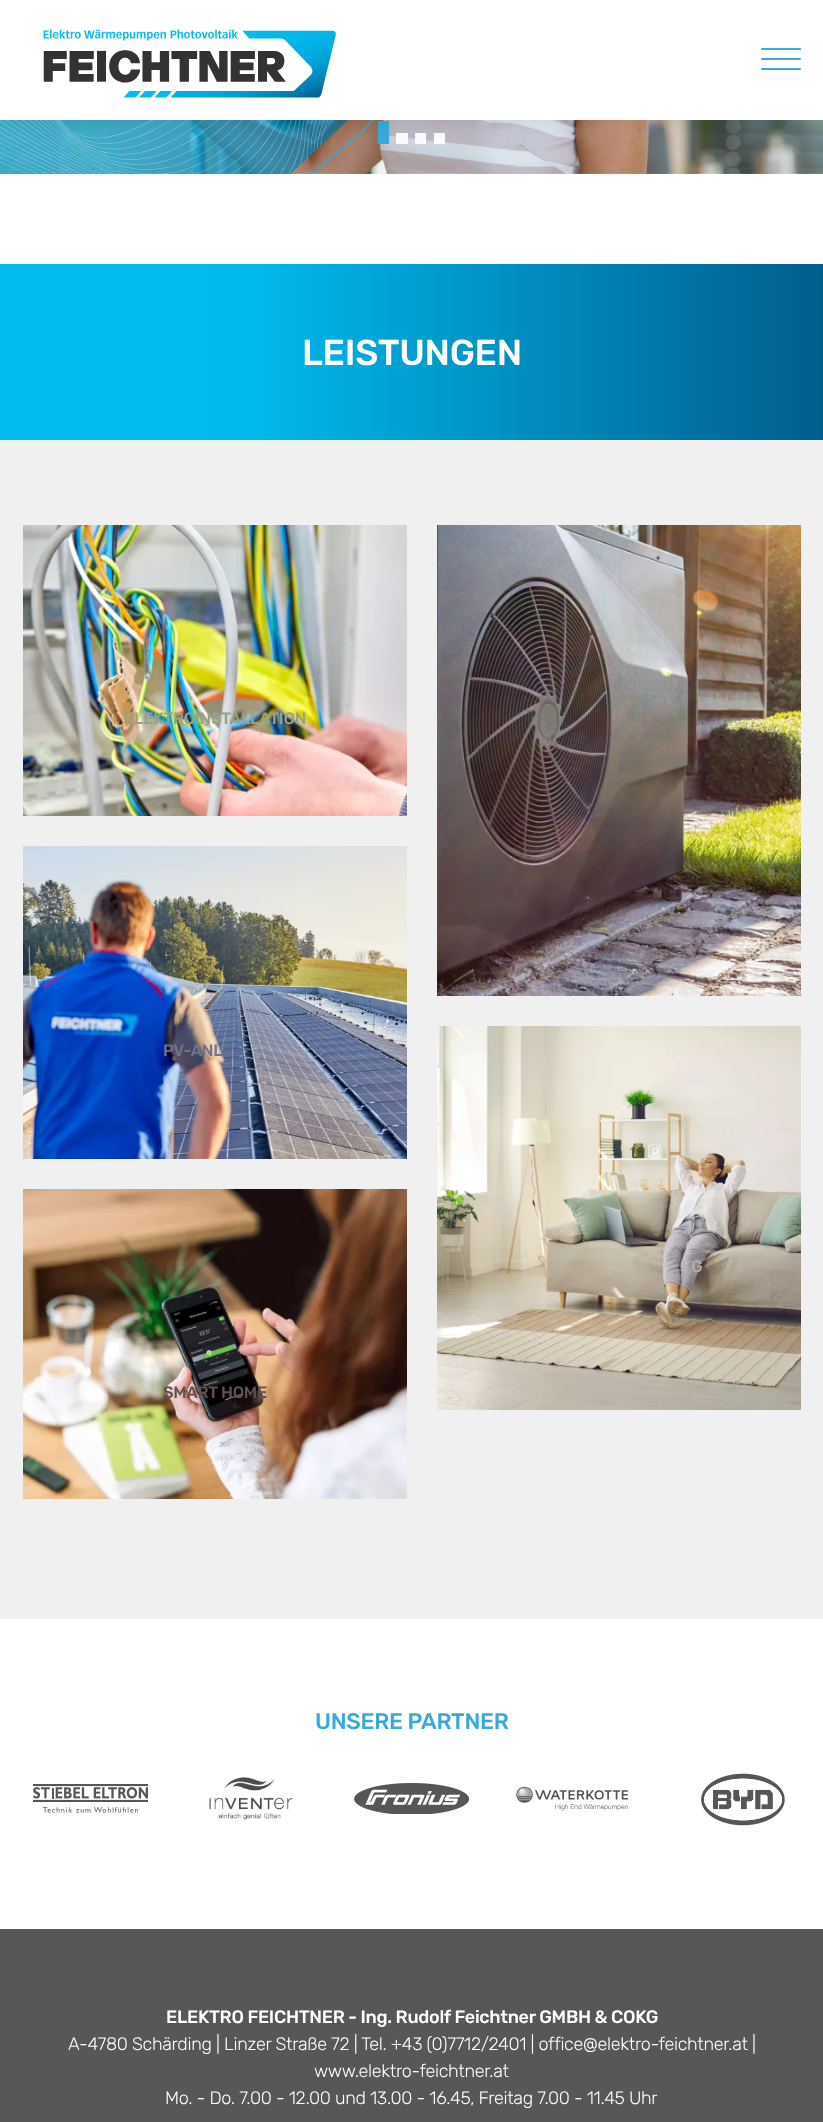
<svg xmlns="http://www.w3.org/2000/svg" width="823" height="2122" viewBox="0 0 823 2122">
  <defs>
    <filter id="blur1" x="-50%" y="-200%" width="200%" height="500%"><feGaussianBlur stdDeviation="10"/></filter>
    <linearGradient id="g1" gradientUnits="userSpaceOnUse" x1="0" y1="352" x2="823" y2="352"><stop offset="0" stop-color="#02bbef"/><stop offset="0.3" stop-color="#00baee"/><stop offset="1" stop-color="#005e8d"/></linearGradient>
  </defs>
  <rect width="100%" height="100%" fill="#ffffff"/>
  <image x="0" y="120" width="823" height="54" href="img2.png"/>
  <image x="0" y="120" width="373" height="54" href="img3.png"/>
  <rect x="378" y="121" width="11" height="23" fill="#37aad8"/>
  <rect x="396" y="133" width="12" height="11" fill="#fafbfc"/>
  <rect x="415" y="133" width="11" height="11" fill="#fafbfc"/>
  <rect x="434" y="133" width="11" height="11" fill="#fafbfc"/>
  <rect x="0" y="-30" width="823" height="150" fill="#000000" fill-opacity="0.1" filter="url(#blur1)"/>
  <rect x="0" y="0" width="823" height="120" fill="#ffffff"/>
  <image x="43" y="29" width="293" height="69" href="img1.png"/>
  <rect x="761" y="48" width="40" height="2" rx="1" fill="#37aad8"/>
  <rect x="761" y="58" width="40" height="2" rx="1" fill="#37aad8"/>
  <rect x="761" y="68" width="40" height="2" rx="1" fill="#37aad8"/>
  <rect x="0" y="264" width="823" height="176" fill="url(#g1)"/>
  <text x="302" y="365" font-family="Rubik" font-size="36" font-weight="300" letter-spacing="-0.3" fill="#ffffff">LEISTUNGEN</text>
  <rect x="0" y="440" width="823" height="1179" fill="#f0f0f0"/>
  <image x="23" y="525" width="384" height="291" href="img4.png"/>
  <text x="124" y="724" font-family="Rubik" font-size="16.5" font-weight="300" letter-spacing="-0.3" fill="#95a385">ELEKTROINSTALLATION</text>
  <image x="23" y="846" width="384" height="313" href="img5.png"/>
  <text x="163" y="1056" font-family="Rubik" font-size="16.5" font-weight="300" letter-spacing="-0.3" fill="#727387">PV-ANL</text>
  <image x="23" y="1189" width="384" height="310" href="img6.png"/>
  <text x="163" y="1398" font-family="Rubik" font-size="16.5" font-weight="300" letter-spacing="-0.3" fill="#63514d">SMART HOME</text>
  <image x="437" y="525" width="364" height="471" href="img7.png"/>
  <image x="437" y="1026" width="364" height="384" href="img8.png"/>
  <text x="691" y="1272" font-family="Rubik" font-size="16.5" font-weight="300" letter-spacing="-0.3" fill="#b6ac9f">G</text>
  <text x="315" y="1729" font-family="Rubik" font-size="22.5" font-weight="300" letter-spacing="-0.3" fill="#37aad8">UNSERE PARTNER</text>
  <image x="33" y="1784" width="115" height="29" href="img9.png"/>
  <image x="209" y="1777" width="84" height="44" href="img10.png"/>
  <image x="354" y="1783" width="115" height="31" href="img11.png"/>
  <image x="516" y="1786" width="112" height="25" href="img12.png"/>
  <image x="701" y="1773" width="84" height="53" href="img13.png"/>
  <rect x="0" y="1929" width="823" height="193" fill="#575756"/>
  <text x="166" y="2023" font-family="Rubik" font-size="18" font-weight="300" letter-spacing="-0.3" fill="#ffffff">ELEKTRO FEICHTNER - Ing. Rudolf Feichtner GMBH &amp; COKG</text>
  <text x="68" y="2050" font-family="'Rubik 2'" font-size="18" font-weight="300" letter-spacing="-0.3" fill="#ffffff">A-4780 Schärding | Linzer Straße 72 | Tel. +43 (0)7712/2401 | office@elektro-feichtner.at |</text>
  <text x="314" y="2077" font-family="'Rubik 2'" font-size="18" font-weight="300" letter-spacing="-0.3" fill="#ffffff">www.elektro-feichtner.at</text>
  <text x="165" y="2104" font-family="'Rubik 2'" font-size="18" font-weight="300" letter-spacing="-0.3" fill="#ffffff">Mo. - Do. 7.00 - 12.00 und 13.00 - 16.45, Freitag 7.00 - 11.45 Uhr</text>
</svg>
